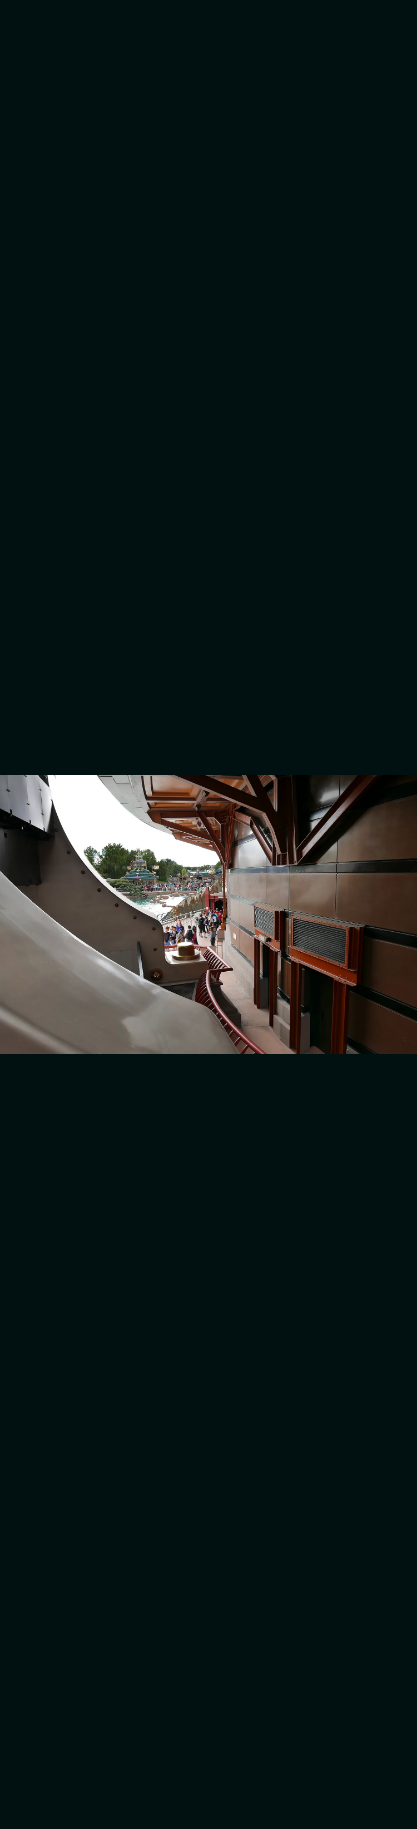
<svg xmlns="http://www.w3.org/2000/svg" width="417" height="1829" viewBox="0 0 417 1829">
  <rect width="100%" height="100%" fill="#011010"/>
  <image x="0" y="775" width="417" height="279" href="img1.png"/>
</svg>
